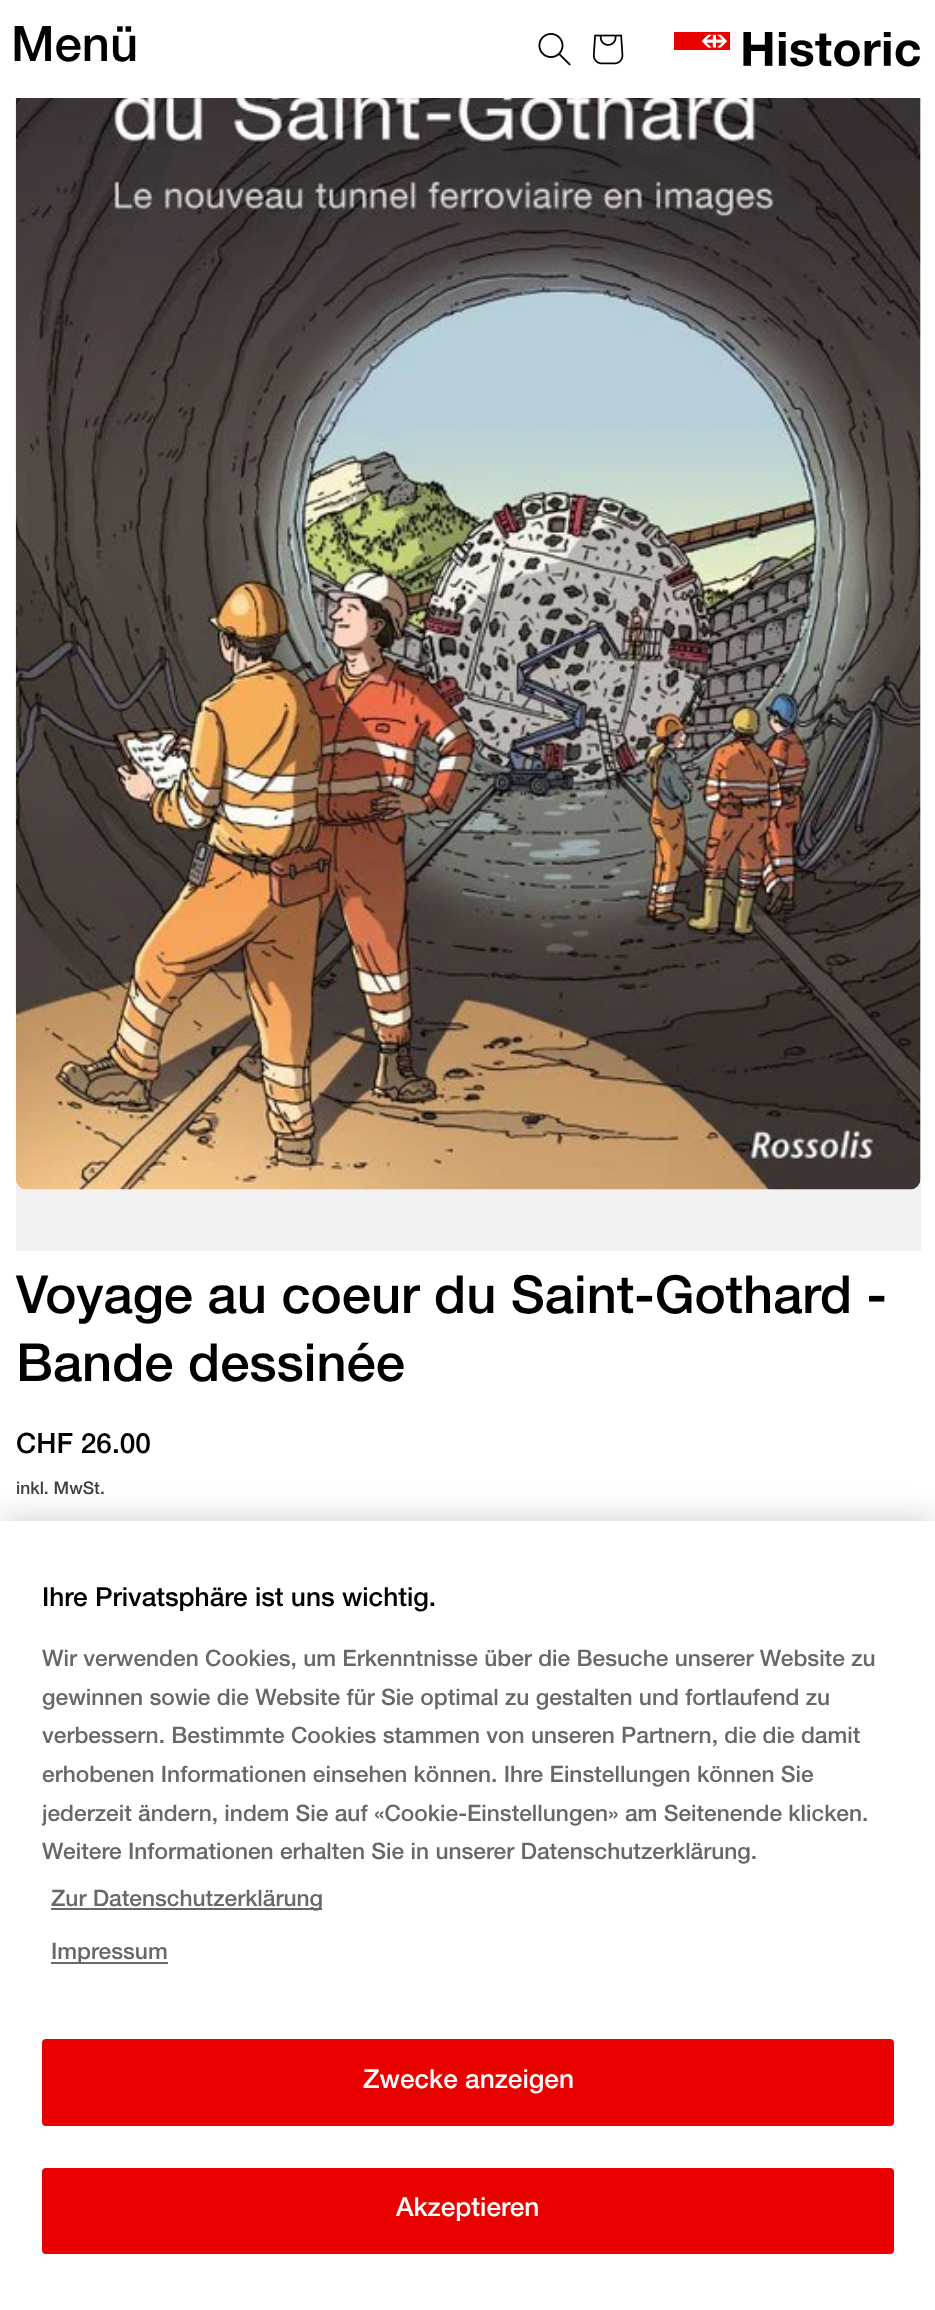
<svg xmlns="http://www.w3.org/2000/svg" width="935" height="2310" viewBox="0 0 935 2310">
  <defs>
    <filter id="blur1" x="-50%" y="-200%" width="200%" height="500%"><feGaussianBlur stdDeviation="16"/></filter>
    <clipPath id="clip1"><rect x="42" y="1643" width="852" height="340"/></clipPath>
  </defs>
  <rect width="100%" height="100%" fill="#ffffff"/>
  <text x="11" y="61" font-family="Helvetica Neue" font-size="49" font-weight="500" fill="#000000">Menü</text>
  <image x="538" y="33" width="33" height="33" href="img1.png"/>
  <image x="592" y="34" width="32" height="31" href="img2.png"/>
  <image x="674" y="32" width="247" height="35" href="img3.png"/>
  <rect x="16" y="98" width="905" height="1153" fill="#f2f2f2"/>
  <image x="15" y="98" width="906" height="1092" href="img4.png"/>
  <text x="16" y="1313" font-family="Helvetica Neue" font-size="52.5" font-weight="500" fill="#000000">Voyage au coeur du Saint-Gothard -</text>
  <text x="16" y="1381" font-family="Helvetica Neue" font-size="52.5" font-weight="500" fill="#000000">Bande dessinée</text>
  <text x="16" y="1453" font-family="Helvetica Neue" font-size="28" font-weight="500" fill="#000000">CHF 26.00</text>
  <text x="16" y="1494" font-family="Helvetica Neue" font-size="17.5" font-weight="500" fill="#404040">inkl. MwSt.</text>
  <rect x="0" y="1521" width="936" height="789" fill="#000000" fill-opacity="0.2" filter="url(#blur1)"/>
  <rect x="0" y="1521" width="935" height="789" fill="#ffffff"/>
  <text x="42" y="1606" font-family="Helvetica Neue" font-size="26.25" font-weight="500" fill="#000000">Ihre Privatsphäre ist uns wichtig.</text>
  <text x="42" y="1666" font-family="Helvetica Neue" font-size="22.75" font-weight="500" fill="#686868">Wir verwenden Cookies, um Erkenntnisse über die Besuche unserer Website zu</text>
  <text x="42" y="1705" font-family="Helvetica Neue" font-size="22.75" font-weight="500" fill="#686868">gewinnen sowie die Website für Sie optimal zu gestalten und fortlaufend zu</text>
  <text x="42" y="1743" font-family="Helvetica Neue" font-size="22.75" font-weight="500" fill="#686868">verbessern. Bestimmte Cookies stammen von unseren Partnern, die die damit</text>
  <text x="42" y="1782" font-family="Helvetica Neue" font-size="22.75" font-weight="500" fill="#686868">erhobenen Informationen einsehen können. Ihre Einstellungen können Sie</text>
  <g clip-path="url(#clip1)">
    <text x="42" y="1821" font-family="Helvetica Neue" font-size="22.75" font-weight="500" fill="#686868">jederzeit ändern, indem Sie auf «Cookie-Einstellungen» am Seitenende klicken.</text>
  </g>
  <text x="42" y="1859" font-family="Helvetica Neue" font-size="22.75" font-weight="500" fill="#686868">Weitere Informationen erhalten Sie in unserer Datenschutzerklärung.</text>
  <rect x="51" y="1908" width="271" height="2" fill="#686868"/>
  <text x="51" y="1906" font-family="Helvetica Neue" font-size="22.75" font-weight="500" fill="#686868">Zur Datenschutzerklärung</text>
  <rect x="51" y="1962" width="117" height="2" fill="#686868"/>
  <text x="51" y="1959" font-family="Helvetica Neue" font-size="22.75" font-weight="500" fill="#686868">Impressum</text>
  <rect x="42" y="2039" width="852" height="87" rx="4" fill="#eb0000"/>
  <text x="363" y="2088" font-family="Helvetica Neue" font-size="26.25" font-weight="500" fill="#ffffff">Zwecke anzeigen</text>
  <rect x="42" y="2168" width="852" height="86" rx="4" fill="#eb0000"/>
  <text x="396" y="2216" font-family="Helvetica Neue" font-size="26.25" font-weight="500" fill="#ffffff">Akzeptieren</text>
</svg>
